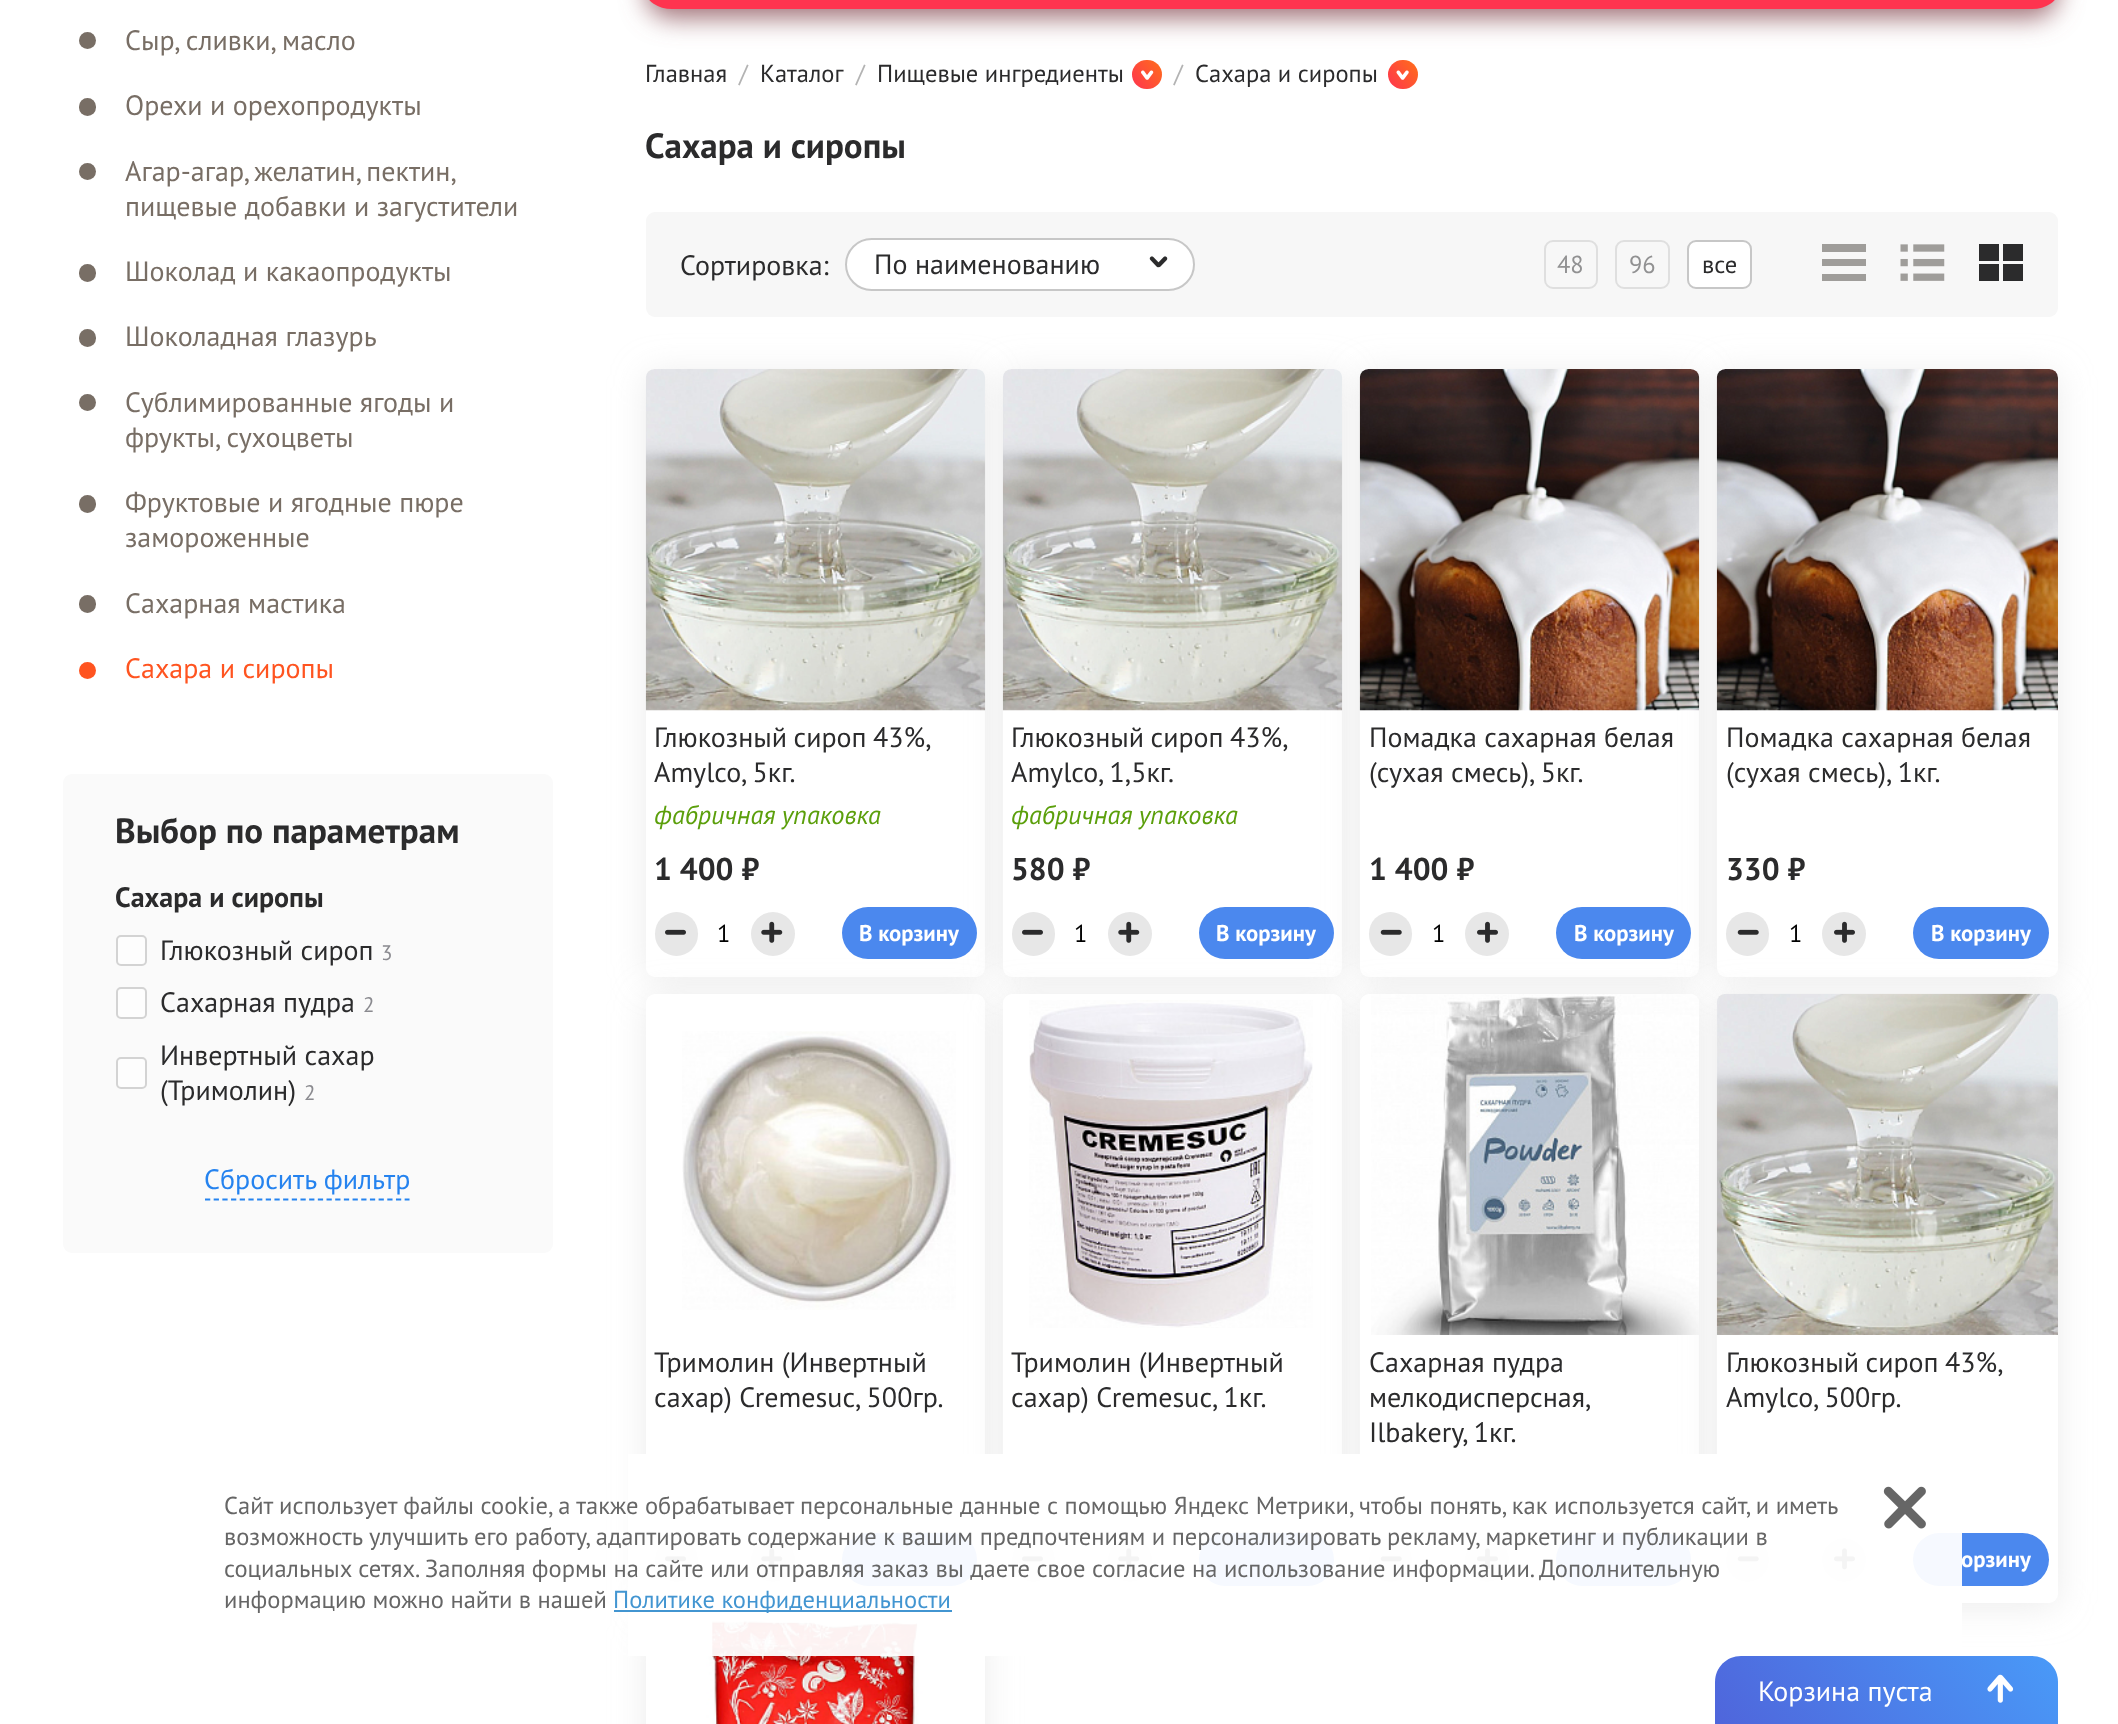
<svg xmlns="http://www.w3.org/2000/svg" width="2118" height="1724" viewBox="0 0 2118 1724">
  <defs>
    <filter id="blur1" x="-50%" y="-200%" width="200%" height="500%"><feGaussianBlur stdDeviation="13"/></filter>
    <linearGradient id="g1" gradientUnits="userSpaceOnUse" x1="1130" y1="87" x2="1164" y2="62"><stop offset="0" stop-color="#ff3350"/><stop offset="1" stop-color="#ff6f19"/></linearGradient>
    <linearGradient id="g2" gradientUnits="userSpaceOnUse" x1="1386" y1="87" x2="1419" y2="62"><stop offset="0" stop-color="#ff3350"/><stop offset="1" stop-color="#ff6f19"/></linearGradient>
    <filter id="blur2" x="-50%" y="-200%" width="200%" height="500%"><feGaussianBlur stdDeviation="17.5"/></filter>
    <linearGradient id="g3" gradientUnits="userSpaceOnUse" x1="1760" y1="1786" x2="2013" y2="1595"><stop offset="0" stop-color="#4f65db"/><stop offset="1" stop-color="#499af8"/></linearGradient>
  </defs>
  <rect width="100%" height="100%" fill="#ffffff"/>
  <circle cx="87.5" cy="40.5" r="8.5" fill="#786e65"/>
  <text x="125" y="50" font-family="PT Sans" font-size="28" fill="#786e65">Сыр, сливки, масло</text>
  <rect x="79" y="98" width="17" height="18" rx="8.5" fill="#786e65"/>
  <text x="125" y="115" font-family="PT Sans" font-size="28" fill="#786e65">Орехи и орехопродукты</text>
  <circle cx="87.5" cy="171.5" r="8.5" fill="#786e65"/>
  <text x="125" y="181" word-spacing="-1" font-family="PT Sans" font-size="28" fill="#786e65">Агар-агар, желатин, пектин,</text>
  <text x="125" y="216" font-family="PT Sans" font-size="28" fill="#786e65">пищевые добавки и загустители</text>
  <rect x="79" y="264" width="17" height="18" rx="8.5" fill="#786e65"/>
  <text x="125" y="281" font-family="PT Sans" font-size="28" fill="#786e65">Шоколад и какаопродукты</text>
  <rect x="79" y="329" width="17" height="18" rx="8.5" fill="#786e65"/>
  <text x="125" y="346" font-family="PT Sans" font-size="28" fill="#786e65">Шоколадная глазурь</text>
  <circle cx="87.5" cy="402.5" r="8.5" fill="#786e65"/>
  <text x="125" y="412" font-family="PT Sans" font-size="28" fill="#786e65">Сублимированные ягоды и</text>
  <text x="125" y="447" font-family="PT Sans" font-size="28" fill="#786e65">фрукты, сухоцветы</text>
  <rect x="79" y="495" width="17" height="18" rx="8.5" fill="#786e65"/>
  <text x="125" y="512" font-family="PT Sans" font-size="28" fill="#786e65">Фруктовые и ягодные пюре</text>
  <text x="125" y="547" font-family="PT Sans" font-size="28" fill="#786e65">замороженные</text>
  <rect x="79" y="595" width="17" height="18" rx="8.5" fill="#786e65"/>
  <text x="125" y="613" font-family="PT Sans" font-size="28" fill="#786e65">Сахарная мастика</text>
  <circle cx="87.5" cy="670.5" r="8.5" fill="#ff5420"/>
  <text x="125" y="678" font-family="PT Sans" font-size="28" fill="#ff5420">Сахара и сиропы</text>
  <rect x="63" y="774" width="490" height="479" rx="9" fill="#fafafa"/>
  <text x="115" y="843" font-family="PT Sans" font-size="35" font-weight="bold" fill="#2b2b2c">Выбор по параметрам</text>
  <text x="115" y="907" font-family="PT Sans" font-size="28" font-weight="bold" fill="#2b2b2c">Сахара и сиропы</text>
  <rect x="117" y="936" width="29" height="29" rx="4" fill="#fdfdfd" stroke="#d3d3d3" stroke-width="2"/>
  <text x="160" y="960" font-family="PT Sans" font-size="28" fill="#2b2b2c">Глюкозный сироп</text>
  <text x="381" y="960" font-family="PT Sans" font-size="21" fill="#8a8a8f">3</text>
  <rect x="117" y="988" width="29" height="30" rx="4" fill="#fdfdfd" stroke="#d3d3d3" stroke-width="2"/>
  <text x="160" y="1012" font-family="PT Sans" font-size="28" fill="#2b2b2c">Сахарная пудра</text>
  <text x="363" y="1012" font-family="PT Sans" font-size="21" fill="#8a8a8f">2</text>
  <rect x="117" y="1058" width="29" height="30" rx="4" fill="#fdfdfd" stroke="#d3d3d3" stroke-width="2"/>
  <text x="160" y="1065" font-family="PT Sans" font-size="28" fill="#2b2b2c">Инвертный сахар</text>
  <text x="160" y="1100" font-family="PT Sans" font-size="28" fill="#2b2b2c">(Тримолин)</text>
  <text x="304" y="1100" font-family="PT Sans" font-size="21" fill="#8a8a8f">2</text>
  <path d="M205 1199.5H409.5" fill="none" stroke="#2583ef" stroke-width="1.8" stroke-dasharray="5.25 3.43"/>
  <text x="204" y="1189" font-family="PT Sans" font-size="28" fill="#2583ef">Сбросить фильтр</text>
  <rect x="646" y="-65" width="1412" height="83" rx="26" fill="#a07177" filter="url(#blur1)"/>
  <rect x="646" y="-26" width="1412" height="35" rx="26" fill="#ff344f"/>
  <text x="645" y="82" font-family="PT Sans" font-size="24.5" fill="#2b2b2c">Главная</text>
  <text x="739" y="82" font-family="PT Sans" font-size="24.5" fill="#b3b3b3">/</text>
  <text x="760" y="82" font-family="PT Sans" font-size="24.5" fill="#2b2b2c">Каталог</text>
  <text x="856" y="82" font-family="PT Sans" font-size="24.5" fill="#b3b3b3">/</text>
  <text x="877" y="82" font-family="PT Sans" font-size="24.5" fill="#2b2b2c">Пищевые ингредиенты</text>
  <rect x="1132" y="60" width="30" height="29" rx="14.5" fill="url(#g1)"/>
  <image x="1141" y="70" width="13" height="10" href="img1.png"/>
  <text x="1174" y="82" font-family="PT Sans" font-size="24.5" fill="#b3b3b3">/</text>
  <text x="1195" y="82" font-family="PT Sans" font-size="24.5" fill="#2b2b2c">Сахара и сиропы</text>
  <rect x="1388" y="60" width="30" height="29" rx="14.5" fill="url(#g2)"/>
  <image x="1396" y="70" width="13" height="10" href="img2.png"/>
  <text x="645" y="158" font-family="PT Sans" font-size="35" font-weight="bold" fill="#2b2b2c">Сахара и сиропы</text>
  <rect x="646" y="212" width="1412" height="105" rx="9" fill="#f7f7f7"/>
  <text x="680" y="275" font-family="PT Sans" font-size="28" fill="#2b2b2c">Сортировка:</text>
  <rect x="846" y="239" width="348" height="51" rx="25.5" fill="#ffffff" stroke="#c7c7c7" stroke-width="2"/>
  <text x="874" y="274" font-family="PT Sans" font-size="28" fill="#2b2b2c">По наименованию</text>
  <image x="1149" y="256" width="19" height="12" href="img3.png"/>
  <rect x="1545" y="241" width="52" height="47" rx="8" fill="none" stroke="#dfdfdf" stroke-width="2"/>
  <text x="1557" y="273" font-family="PT Sans" font-size="24.5" fill="#919192">48</text>
  <rect x="1616" y="241" width="53" height="47" rx="8" fill="none" stroke="#dfdfdf" stroke-width="2"/>
  <text x="1629" y="273" font-family="PT Sans" font-size="24.5" fill="#919192">96</text>
  <rect x="1688" y="241" width="63" height="47" rx="8" fill="#ffffff" stroke="#c7c7c7" stroke-width="2"/>
  <text x="1702" y="273" font-family="PT Sans" font-size="24.5" fill="#2b2b2c">все</text>
  <path d="M1822 244H1866V252H1822ZM1822 259H1866V266H1822ZM1822 274H1866V281H1822Z" fill="#9f9d9a"/>
  <image x="1900" y="244" width="45" height="37" href="img4.png"/>
  <path d="M1979 244H1999V261H1979ZM2003 244H2023V261H2003ZM1979 264H1999V281H1979ZM2003 264H2023V281H2003Z" fill="#2b2b2c"/>
  <rect x="646" y="373" width="339" height="607" rx="9" fill="#dadada" fill-opacity="0.5" filter="url(#blur2)"/>
  <rect x="646" y="369" width="339" height="608" rx="9" fill="#ffffff"/>
  <rect x="1003" y="373" width="339" height="607" rx="9" fill="#dadada" fill-opacity="0.5" filter="url(#blur2)"/>
  <image x="645" y="369" width="341" height="342" href="img5.png"/>
  <text x="654" y="747" word-spacing="-1" font-family="PT Sans" font-size="28" fill="#2b2b2c">Глюкозный сироп 43%,</text>
  <text x="654" y="782" font-family="PT Sans" font-size="28" fill="#2b2b2c">Amylco, 5кг.</text>
  <text x="654" y="824" font-family="PT Sans" font-size="26.25" font-style="italic" fill="#5b9f0b">фабричная упаковка</text>
  <text x="654" y="880" font-family="PT Sans" font-size="31.5" font-weight="bold" fill="#2b2b2c">1 400 ₽</text>
  <rect x="655" y="912" width="43" height="44" rx="21.5" fill="#e7e7e7"/>
  <image x="665" y="929" width="21" height="6" href="img6.png"/>
  <text x="717" y="942" font-family="PT Sans" font-size="24.5" fill="#000000">1</text>
  <circle cx="773" cy="934" r="22" fill="#e7e7e7"/>
  <image x="761" y="921" width="22" height="22" href="img7.png"/>
  <rect x="1003" y="369" width="339" height="608" rx="9" fill="#ffffff"/>
  <rect x="1012" y="912" width="43" height="44" rx="21.5" fill="#e7e7e7"/>
  <rect x="646" y="998" width="339" height="609" rx="9" fill="#dadada" fill-opacity="0.5" filter="url(#blur2)"/>
  <circle cx="1130" cy="934" r="22" fill="#e7e7e7"/>
  <rect x="1360" y="373" width="339" height="607" rx="9" fill="#dadada" fill-opacity="0.5" filter="url(#blur2)"/>
  <rect x="1360" y="369" width="339" height="608" rx="9" fill="#ffffff"/>
  <rect x="1369" y="912" width="43" height="44" rx="21.5" fill="#e7e7e7"/>
  <rect x="646" y="994" width="339" height="609" rx="9" fill="#ffffff"/>
  <rect x="1003" y="998" width="339" height="609" rx="9" fill="#dadada" fill-opacity="0.5" filter="url(#blur2)"/>
  <rect x="842" y="907" width="135" height="52" rx="26" fill="#4b88ee"/>
  <text x="859" y="941" font-family="PT Sans" font-size="22.75" font-weight="bold" fill="#ffffff">В корзину</text>
  <image x="1002" y="369" width="341" height="342" href="img8.png"/>
  <text x="1011" y="747" word-spacing="-1" font-family="PT Sans" font-size="28" fill="#2b2b2c">Глюкозный сироп 43%,</text>
  <text x="1011" y="782" font-family="PT Sans" font-size="28" fill="#2b2b2c">Amylco, 1,5кг.</text>
  <text x="1011" y="824" font-family="PT Sans" font-size="26.25" font-style="italic" fill="#5b9f0b">фабричная упаковка</text>
  <text x="1011" y="880" font-family="PT Sans" font-size="31.5" font-weight="bold" fill="#2b2b2c">580 ₽</text>
  <image x="1022" y="929" width="21" height="6" href="img6.png"/>
  <text x="1074" y="942" font-family="PT Sans" font-size="24.5" fill="#000000">1</text>
  <image x="1118" y="921" width="22" height="22" href="img7.png"/>
  <circle cx="1487" cy="934" r="22" fill="#e7e7e7"/>
  <rect x="1717" y="373" width="341" height="607" rx="9" fill="#dadada" fill-opacity="0.5" filter="url(#blur2)"/>
  <rect x="1717" y="369" width="341" height="608" rx="9" fill="#ffffff"/>
  <rect x="1726" y="912" width="43" height="44" rx="21.5" fill="#e7e7e7"/>
  <rect x="1003" y="994" width="339" height="609" rx="9" fill="#ffffff"/>
  <rect x="1360" y="998" width="339" height="609" rx="9" fill="#dadada" fill-opacity="0.5" filter="url(#blur2)"/>
  <rect x="1199" y="907" width="135" height="52" rx="26" fill="#4b88ee"/>
  <text x="1216" y="941" font-family="PT Sans" font-size="22.75" font-weight="bold" fill="#ffffff">В корзину</text>
  <image x="1359" y="369" width="341" height="342" href="img9.png"/>
  <text x="1369" y="747" font-family="PT Sans" font-size="28" fill="#2b2b2c">Помадка сахарная белая</text>
  <text x="1369" y="782" font-family="PT Sans" font-size="28" fill="#2b2b2c">(сухая смесь), 5кг.</text>
  <text x="1369" y="880" font-family="PT Sans" font-size="31.5" font-weight="bold" fill="#2b2b2c">1 400 ₽</text>
  <image x="1380" y="929" width="22" height="6" href="img10.png"/>
  <text x="1432" y="942" font-family="PT Sans" font-size="24.5" fill="#000000">1</text>
  <image x="1477" y="921" width="21" height="22" href="img11.png"/>
  <circle cx="1844" cy="934" r="22" fill="#e7e7e7"/>
  <rect x="1360" y="994" width="339" height="609" rx="9" fill="#ffffff"/>
  <rect x="1717" y="998" width="341" height="609" rx="9" fill="#dadada" fill-opacity="0.5" filter="url(#blur2)"/>
  <rect x="1556" y="907" width="135" height="52" rx="26" fill="#4b88ee"/>
  <text x="1574" y="941" font-family="PT Sans" font-size="22.75" font-weight="bold" fill="#ffffff">В корзину</text>
  <image x="1716" y="369" width="342" height="342" href="img12.png"/>
  <text x="1726" y="747" font-family="PT Sans" font-size="28" fill="#2b2b2c">Помадка сахарная белая</text>
  <text x="1726" y="782" font-family="PT Sans" font-size="28" fill="#2b2b2c">(сухая смесь), 1кг.</text>
  <text x="1726" y="880" font-family="PT Sans" font-size="31.5" font-weight="bold" fill="#2b2b2c">330 ₽</text>
  <image x="1737" y="929" width="22" height="6" href="img10.png"/>
  <text x="1789" y="942" font-family="PT Sans" font-size="24.5" fill="#000000">1</text>
  <image x="1834" y="921" width="21" height="22" href="img11.png"/>
  <rect x="1913" y="907" width="136" height="52" rx="26" fill="#4b88ee"/>
  <text x="1931" y="941" font-family="PT Sans" font-size="22.75" font-weight="bold" fill="#ffffff">В корзину</text>
  <image x="682" y="1031" width="274" height="279" href="img13.png"/>
  <text x="654" y="1372" font-family="PT Sans" font-size="28" fill="#2b2b2c">Тримолин (Инвертный</text>
  <text x="654" y="1407" font-family="PT Sans" font-size="28" fill="#2b2b2c">сахар) Cremesuc, 500гр.</text>
  <rect x="655" y="1538" width="43" height="44" rx="21.5" fill="#e7e7e7"/>
  <image x="665" y="1556" width="21" height="6" href="img14.png"/>
  <circle cx="773" cy="1560" r="22" fill="#e7e7e7"/>
  <image x="761" y="1548" width="22" height="22" href="img15.png"/>
  <rect x="1012" y="1538" width="43" height="44" rx="21.5" fill="#e7e7e7"/>
  <rect x="646" y="1624" width="339" height="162" rx="9" fill="#dadada" fill-opacity="0.5" filter="url(#blur2)"/>
  <rect x="842" y="1533" width="135" height="53" rx="26.5" fill="#4b88ee"/>
  <image x="1029" y="1000" width="284" height="328" href="img16.png"/>
  <text x="1011" y="1372" font-family="PT Sans" font-size="28" fill="#2b2b2c">Тримолин (Инвертный</text>
  <text x="1011" y="1407" font-family="PT Sans" font-size="28" fill="#2b2b2c">сахар) Cremesuc, 1кг.</text>
  <image x="1022" y="1556" width="21" height="6" href="img14.png"/>
  <circle cx="1130" cy="1560" r="22" fill="#e7e7e7"/>
  <image x="1118" y="1548" width="22" height="22" href="img15.png"/>
  <rect x="1199" y="1533" width="135" height="53" rx="26.5" fill="#4b88ee"/>
  <image x="1371" y="994" width="328" height="341" href="img17.png"/>
  <text x="1369" y="1372" font-family="PT Sans" font-size="28" fill="#2b2b2c">Сахарная пудра</text>
  <text x="1369" y="1407" font-family="PT Sans" font-size="28" fill="#2b2b2c">мелкодисперсная,</text>
  <text x="1369" y="1442" font-family="PT Sans" font-size="28" fill="#2b2b2c">Ilbakery, 1кг.</text>
  <rect x="1369" y="1538" width="43" height="44" rx="21.5" fill="#e7e7e7"/>
  <image x="1380" y="1556" width="22" height="6" href="img18.png"/>
  <circle cx="1487" cy="1560" r="22" fill="#e7e7e7"/>
  <image x="1477" y="1548" width="21" height="22" href="img19.png"/>
  <rect x="1556" y="1533" width="135" height="53" rx="26.5" fill="#4b88ee"/>
  <rect x="1717" y="994" width="341" height="609" rx="9" fill="#ffffff"/>
  <image x="1716" y="993" width="342" height="342" href="img20.png"/>
  <text x="1726" y="1372" word-spacing="-1" font-family="PT Sans" font-size="28" fill="#2b2b2c">Глюкозный сироп 43%,</text>
  <text x="1726" y="1407" font-family="PT Sans" font-size="28" fill="#2b2b2c">Amylco, 500гр.</text>
  <rect x="1726" y="1538" width="43" height="44" rx="21.5" fill="#e7e7e7"/>
  <image x="1737" y="1556" width="22" height="6" href="img18.png"/>
  <circle cx="1844" cy="1560" r="22" fill="#e7e7e7"/>
  <image x="1834" y="1548" width="21" height="22" href="img19.png"/>
  <rect x="1913" y="1533" width="136" height="53" rx="26.5" fill="#4b88ee"/>
  <text x="1961" y="1567" font-family="PT Sans" font-size="22.75" font-weight="bold" fill="#ffffff">орзину</text>
  <rect x="646" y="1621" width="339" height="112" rx="9" fill="#ffffff"/>
  <image x="670" y="1620" width="291" height="104" href="img21.png"/>
  <rect x="628" y="1454" width="1334" height="202" fill="#ffffff" fill-opacity="0.95"/>
  <text x="224" y="1514" font-family="PT Sans" font-size="24.5" fill="#666666">Сайт использует файлы cookie, а также обрабатывает персональные данные с помощью Яндекс Метрики, чтобы понять, как используется сайт, и иметь</text>
  <text x="224" y="1545" font-family="PT Sans" font-size="24.5" fill="#666666">возможность улучшить его работу, адаптировать содержание к вашим предпочтениям и персонализировать рекламу, маркетинг и публикации в</text>
  <text x="224" y="1577" font-family="PT Sans" font-size="24.5" fill="#666666">социальных сетях. Заполняя формы на сайте или отправляя заказ вы даете свое согласие на использование информации. Дополнительную</text>
  <text x="224" y="1608" font-family="PT Sans" font-size="24.5" fill="#666666">информацию можно найти в нашей</text>
  <rect x="614" y="1610" width="338" height="2" fill="#4295d1"/>
  <text x="613" y="1608" font-family="PT Sans" font-size="24.5" fill="#4295d1">Политике конфиденциальности</text>
  <image x="1883" y="1486" width="43" height="43" href="img22.png"/>
  <path d="M1741 1656H2032C2046.5 1656 2058 1667.5 2058 1682V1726H1715V1682C1715 1667.5 1726.5 1656 1741 1656Z" fill="url(#g3)"/>
  <text x="1758" y="1701" font-family="PT Sans" font-size="28" fill="#ffffff">Корзина пуста</text>
  <image x="1987" y="1674" width="27" height="29" href="img23.png"/>
</svg>
